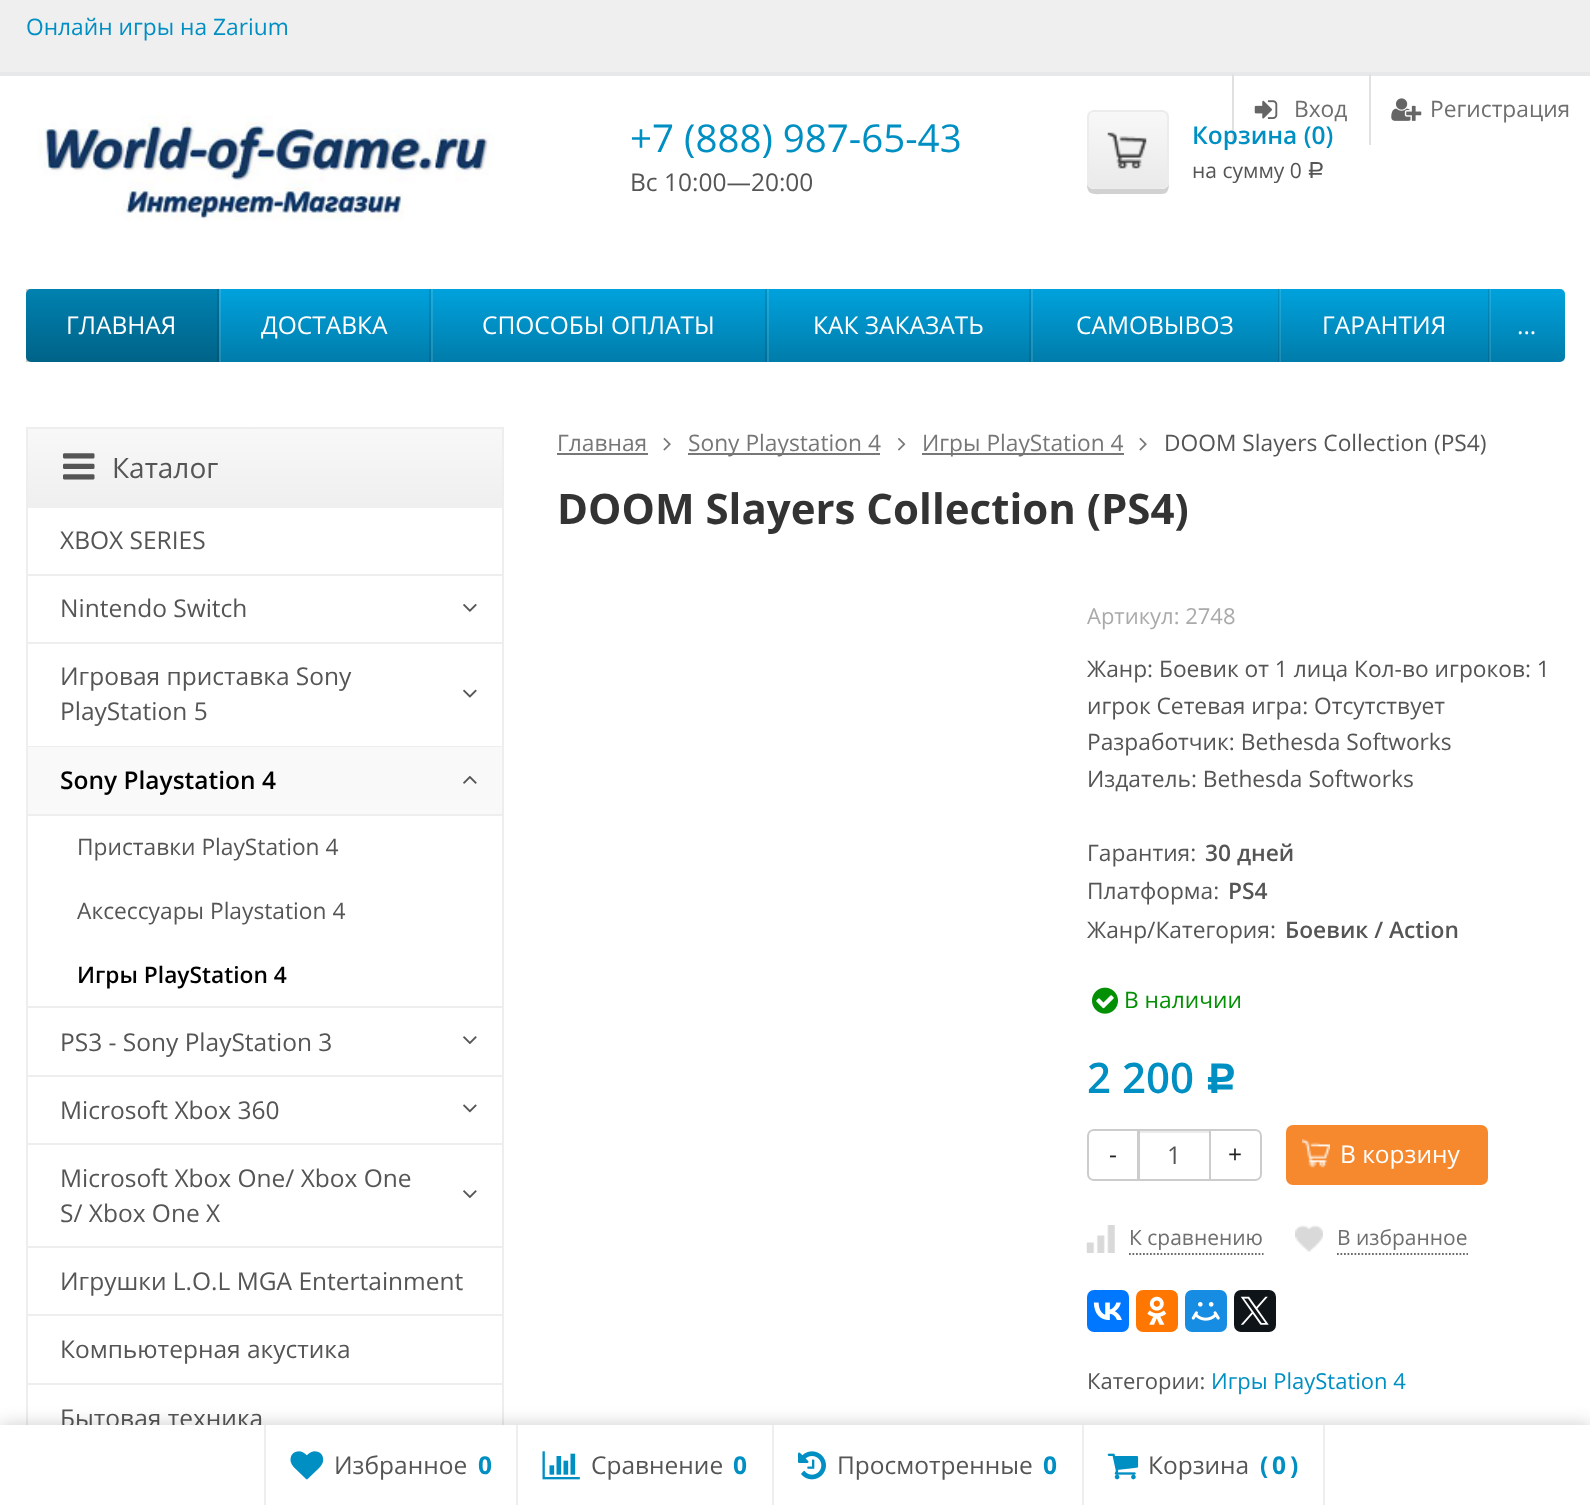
<svg xmlns="http://www.w3.org/2000/svg" width="1590" height="1505" viewBox="0 0 1590 1505">
  <defs>
    <clipPath id="clip1"><rect x="1087" y="110" width="82" height="79" rx="7"/></clipPath>
    <linearGradient id="g1" gradientUnits="userSpaceOnUse" x1="1128" y1="112" x2="1128" y2="187"><stop offset="0" stop-color="#f9f8f9"/><stop offset="1" stop-color="#eaeaea"/></linearGradient>
    <linearGradient id="g2" gradientUnits="userSpaceOnUse" x1="795" y1="289" x2="795" y2="362"><stop offset="0" stop-color="#00a2dd"/><stop offset="1" stop-color="#007caa"/></linearGradient>
    <linearGradient id="g3" gradientUnits="userSpaceOnUse" x1="795" y1="289" x2="795" y2="362"><stop offset="0" stop-color="#1fade1"/><stop offset="1" stop-color="#1f8cb4"/></linearGradient>
    <linearGradient id="g4" gradientUnits="userSpaceOnUse" x1="795" y1="289" x2="795" y2="362"><stop offset="0" stop-color="#008fc2"/><stop offset="1" stop-color="#006d96"/></linearGradient>
    <linearGradient id="g5" gradientUnits="userSpaceOnUse" x1="795" y1="289" x2="795" y2="362"><stop offset="0" stop-color="#1f9cc9"/><stop offset="1" stop-color="#1f7fa3"/></linearGradient>
    <linearGradient id="g6" gradientUnits="userSpaceOnUse" x1="265" y1="429" x2="265" y2="508"><stop offset="0" stop-color="#f9f8f8"/><stop offset="1" stop-color="#f0eff0"/></linearGradient>
    <filter id="blur1" x="-50%" y="-200%" width="200%" height="500%"><feGaussianBlur stdDeviation="9"/></filter>
  </defs>
  <rect width="100%" height="100%" fill="#ffffff"/>
  <rect x="0" y="0" width="1590" height="74" fill="#f0eff0"/>
  <rect x="0" y="72" width="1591" height="2" rx="1" fill="#e6e8ea"/>
  <rect x="0" y="74" width="1590" height="2" fill="#e6e8ea"/>
  <text x="26" y="35" font-family="Open Sans" font-size="22.75" fill="#008fc3">Онлайн игры на Zarium</text>
  <rect x="1232" y="74" width="2" height="71" fill="#e2e1e2"/>
  <image x="1254" y="100" width="24" height="19" href="img1.png"/>
  <text x="1294" y="117" font-family="Open Sans" font-size="22.75" fill="#6f6f6f">Вход</text>
  <rect x="1369" y="74" width="2" height="71" fill="#e2e1e2"/>
  <image x="1391" y="98" width="31" height="23" href="img2.png"/>
  <text x="1430" y="117" font-family="Open Sans" font-size="22.75" fill="#6f6f6f">Регистрация</text>
  <image x="37" y="115" width="457" height="106" href="img3.png"/>
  <text x="630" y="152" font-family="Open Sans" font-size="38.5" fill="#008fc3">+7 (888) 987-65-43</text>
  <text x="630" y="191" font-family="Open Sans" font-size="24.5" fill="#555555">Вс 10:00—20:00</text>
  <path d="M1087 184C1087 196 1094 194 1105 194H1151C1165 194 1169 196 1169 182C1169 186 1166 189 1162 189H1094C1091 189 1088 187 1087 184Z" fill="#d1d1d1"/>
  <g clip-path="url(#clip1)">
    <rect x="1087" y="112" width="82" height="75" fill="url(#g1)"/>
  </g>
  <rect x="1088" y="111" width="80" height="77" rx="6" fill="none" stroke="#ececec" stroke-width="2"/>
  <image x="1107" y="132" width="40" height="37" href="img4.png"/>
  <text x="1192" y="144" font-family="Open Sans" font-size="24.5" font-weight="600" fill="#008fc3">Корзина (0)</text>
  <text x="1192" y="178" font-family="Open Sans" font-size="21" fill="#555555">на сумму 0</text>
  <text x="1307" y="178" font-family="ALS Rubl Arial" font-size="22.75" fill="#555555">Р</text>
  <rect x="26" y="289" width="1539" height="73" rx="5" fill="url(#g2)"/>
  <rect x="1490" y="289" width="1" height="73" fill="url(#g3)"/>
  <rect x="1280" y="289" width="1" height="73" fill="url(#g3)"/>
  <rect x="1488" y="289" width="1" height="73" fill="url(#g4)"/>
  <rect x="1489" y="289" width="1" height="73" fill="url(#g5)"/>
  <rect x="1031" y="289" width="2" height="73" fill="url(#g3)"/>
  <rect x="1278" y="289" width="1" height="73" fill="url(#g4)"/>
  <rect x="1279" y="289" width="1" height="73" fill="url(#g5)"/>
  <rect x="767" y="289" width="2" height="73" fill="url(#g3)"/>
  <rect x="1029" y="289" width="2" height="73" fill="url(#g4)"/>
  <rect x="431" y="289" width="2" height="73" fill="url(#g3)"/>
  <rect x="765" y="289" width="2" height="73" fill="url(#g4)"/>
  <rect x="219" y="289" width="2" height="73" fill="url(#g3)"/>
  <rect x="429" y="289" width="2" height="73" fill="url(#g4)"/>
  <rect x="26" y="289" width="193" height="73" fill="#000000" fill-opacity="0.2"/>
  <rect x="217" y="289" width="2" height="73" fill="#000000" fill-opacity="0.12"/>
  <text x="66" y="334" font-family="Open Sans" font-size="24.5" fill="#ffffff">ГЛАВНАЯ</text>
  <text x="261" y="334" font-family="Open Sans" font-size="24.5" fill="#ffffff">ДОСТАВКА</text>
  <text x="482" y="334" font-family="Open Sans" font-size="24.5" fill="#ffffff">СПОСОБЫ ОПЛАТЫ</text>
  <text x="813" y="334" font-family="Open Sans" font-size="24.5" fill="#ffffff">КАК ЗАКАЗАТЬ</text>
  <text x="1076" y="334" font-family="Open Sans" font-size="24.5" fill="#ffffff">САМОВЫВОЗ</text>
  <text x="1322" y="334" font-family="Open Sans" font-size="24.5" fill="#ffffff">ГАРАНТИЯ</text>
  <text x="1517" y="334" font-family="Open Sans" font-size="24.5" fill="#ffffff">...</text>
  <rect x="27" y="428" width="476" height="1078" fill="none" stroke="#eeeeee" stroke-width="2"/>
  <rect x="28" y="429" width="474" height="79" fill="url(#g6)"/>
  <image x="63" y="453" width="32" height="27" href="img5.png"/>
  <text x="112" y="478" font-family="Open Sans" font-size="28" fill="#555555">Каталог</text>
  <text x="60" y="549" font-family="Open Sans" font-size="24.5" fill="#555555">XBOX SERIES</text>
  <rect x="28" y="574" width="474" height="2" fill="#eeeeee"/>
  <text x="60" y="617" font-family="Open Sans" font-size="24.5" fill="#555555">Nintendo Switch</text>
  <image x="463" y="604" width="14" height="8" href="img6.png"/>
  <rect x="28" y="642" width="474" height="2" fill="#eeeeee"/>
  <text x="60" y="685" font-family="Open Sans" font-size="24.5" fill="#555555">Игровая приставка Sony</text>
  <text x="60" y="720" font-family="Open Sans" font-size="24.5" fill="#555555">PlayStation 5</text>
  <image x="463" y="689" width="14" height="9" href="img7.png"/>
  <rect x="28" y="746" width="474" height="1" fill="#eeeeee"/>
  <rect x="28" y="747" width="474" height="67" fill="#f9f9f9"/>
  <text x="60" y="789" font-family="Open Sans" font-size="24.5" font-weight="600" fill="#000000">Sony Playstation 4</text>
  <image x="463" y="775" width="14" height="9" href="img8.png"/>
  <rect x="28" y="814" width="474" height="2" fill="#eeeeee"/>
  <text x="77" y="855" font-family="Open Sans" font-size="22.75" fill="#555555">Приставки PlayStation 4</text>
  <text x="77" y="919" font-family="Open Sans" font-size="22.75" fill="#555555">Аксессуары Playstation 4</text>
  <text x="77" y="983" font-family="Open Sans" font-size="22.75" font-weight="600" fill="#000000">Игры PlayStation 4</text>
  <rect x="28" y="1006" width="474" height="2" fill="#eeeeee"/>
  <text x="60" y="1051" font-family="Open Sans" font-size="24.5" fill="#555555">PS3 - Sony PlayStation 3</text>
  <image x="463" y="1036" width="14" height="9" href="img9.png"/>
  <rect x="28" y="1075" width="474" height="2" fill="#eeeeee"/>
  <text x="60" y="1119" font-family="Open Sans" font-size="24.5" fill="#555555">Microsoft Xbox 360</text>
  <image x="463" y="1104" width="14" height="9" href="img10.png"/>
  <rect x="28" y="1143" width="474" height="2" fill="#eeeeee"/>
  <text x="60" y="1187" font-family="Open Sans" font-size="24.5" fill="#555555">Microsoft Xbox One/ Xbox One</text>
  <text x="60" y="1222" font-family="Open Sans" font-size="24.5" fill="#555555">S/ Xbox One X</text>
  <image x="463" y="1190" width="14" height="9" href="img9.png"/>
  <rect x="28" y="1246" width="474" height="2" fill="#eeeeee"/>
  <text x="60" y="1290" font-family="Open Sans" font-size="24.5" fill="#555555">Игрушки L.O.L MGA Entertainment</text>
  <rect x="28" y="1314" width="474" height="2" fill="#eeeeee"/>
  <text x="60" y="1358" font-family="Open Sans" font-size="24.5" fill="#555555">Компьютерная акустика</text>
  <rect x="28" y="1383" width="474" height="2" fill="#eeeeee"/>
  <text x="60" y="1427" font-family="Open Sans" font-size="24.5" fill="#555555">Бытовая техника</text>
  <text x="557" y="451" font-family="Open Sans" font-size="22.75" fill="#777777">Главная</text>
  <rect x="557" y="453" width="91" height="2" fill="#777777"/>
  <image x="663" y="437" width="8" height="14" href="img11.png"/>
  <rect x="688" y="453" width="192" height="2" fill="#777777"/>
  <text x="688" y="451" font-family="Open Sans" font-size="22.75" fill="#777777">Sony Playstation 4</text>
  <image x="898" y="438" width="8" height="13" href="img12.png"/>
  <rect x="922" y="453" width="202" height="2" fill="#777777"/>
  <text x="922" y="451" font-family="Open Sans" font-size="22.75" fill="#777777">Игры PlayStation 4</text>
  <image x="1139" y="437" width="8" height="14" href="img11.png"/>
  <text x="1164" y="451" font-family="Open Sans" font-size="22.75" fill="#555555">DOOM Slayers Collection (PS4)</text>
  <text x="557" y="524" font-family="Open Sans" font-size="42" font-weight="bold" fill="#333333">DOOM Slayers Collection (PS4)</text>
  <text x="1087" y="624" font-family="Open Sans" font-size="22" fill="#aaaaaa">Артикул: 2748</text>
  <text x="1087" y="677" font-family="Open Sans" font-size="22.75" fill="#555555">Жанр: Боевик от 1 лица Кол-во игроков: 1</text>
  <text x="1087" y="714" font-family="Open Sans" font-size="22.75" fill="#555555">игрок Сетевая игра: Отсутствует</text>
  <text x="1087" y="750" font-family="Open Sans" font-size="22.75" fill="#555555">Разработчик: Bethesda Softworks</text>
  <text x="1087" y="787" font-family="Open Sans" font-size="22.75" fill="#555555">Издатель: Bethesda Softworks</text>
  <text x="1087" y="861" font-family="Open Sans" font-size="22.75" fill="#555555">Гарантия:</text>
  <text x="1205" y="861" font-family="Open Sans" font-size="22.75" font-weight="600" fill="#555555">30 дней</text>
  <text x="1087" y="899" font-family="Open Sans" font-size="22.75" fill="#555555">Платформа:</text>
  <text x="1228" y="899" font-family="Open Sans" font-size="22.75" font-weight="600" fill="#555555">PS4</text>
  <text x="1087" y="938" font-family="Open Sans" font-size="22.75" fill="#555555">Жанр/Категория:</text>
  <text x="1285" y="938" font-family="Open Sans" font-size="22.75" font-weight="600" fill="#555555">Боевик / Action</text>
  <image x="1092" y="987" width="26" height="27" href="img13.png"/>
  <text x="1124" y="1008" font-family="Open Sans" font-size="22.75" fill="#049004">В наличии</text>
  <text x="1087" y="1093" font-family="Open Sans" font-size="42" font-weight="600" fill="#008fc3">2 200</text>
  <text x="1205" y="1093" font-family="ALS Rubl Arial" font-size="42" font-weight="bold" fill="#008fc3">Р</text>
  <path d="M1094 1130H1138V1180H1094C1090.5 1180 1088 1177.5 1088 1174V1136C1088 1132.5 1090.5 1130 1094 1130Z" fill="none" stroke="#cccccc" stroke-width="2"/>
  <text x="1109" y="1163" font-family="Open Sans" font-size="24.5" fill="#222222">-</text>
  <rect x="1139" y="1131" width="70" height="2" fill="#ececec"/>
  <path d="M1210 1130H1255C1258.5 1130 1261 1132.5 1261 1136V1174C1261 1177.5 1258.5 1180 1255 1180H1210Z" fill="none" stroke="#cccccc" stroke-width="2"/>
  <rect x="1139" y="1130" width="71" height="50" fill="none" stroke="#cccccc" stroke-width="2"/>
  <text x="1167" y="1164" font-family="Open Sans" font-size="24.5" fill="#555555">1</text>
  <text x="1228" y="1163" font-family="Open Sans" font-size="24.5" fill="#222222">+</text>
  <rect x="1286" y="1125" width="202" height="60" rx="7" fill="#f6882d"/>
  <image x="1302" y="1139" width="28" height="29" href="img14.png"/>
  <text x="1340" y="1163" font-family="Open Sans" font-size="24.5" fill="#ffffff">В корзину</text>
  <image x="1086" y="1225" width="29" height="28" href="img15.png"/>
  <text x="1129" y="1245" font-family="Open Sans" font-size="21" fill="#6f6f6f">К сравнению</text>
  <path d="M1129 1254H1263.5" fill="none" stroke="#6c6c6c" stroke-width="1.8" stroke-dasharray="1.75 1.75"/>
  <image x="1295" y="1225" width="28" height="27" href="img16.png"/>
  <text x="1337" y="1245" font-family="Open Sans" font-size="21" fill="#6f6f6f">В избранное</text>
  <path d="M1337 1254H1468" fill="none" stroke="#6c6c6c" stroke-width="1.8" stroke-dasharray="1.75 1.75"/>
  <rect x="1087" y="1290" width="42" height="42" rx="7" fill="#0077ff"/>
  <image x="1093" y="1302" width="29" height="18" href="img17.png"/>
  <rect x="1136" y="1290" width="42" height="42" rx="7" fill="#ff7700"/>
  <image x="1147" y="1296" width="20" height="29" href="img18.png"/>
  <rect x="1185" y="1290" width="42" height="42" rx="7" fill="#168de2"/>
  <image x="1191" y="1302" width="29" height="19" href="img19.png"/>
  <rect x="1234" y="1290" width="42" height="42" rx="7" fill="#0f1419"/>
  <image x="1240" y="1296" width="29" height="29" href="img20.png"/>
  <text x="1087" y="1389" font-family="Open Sans" font-size="22" fill="#555555">Категории:</text>
  <text x="1211" y="1389" font-family="Open Sans" font-size="22" fill="#008fc3">Игры PlayStation 4</text>
  <rect x="0" y="1425" width="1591" height="80" fill="#000000" fill-opacity="0.2" filter="url(#blur1)"/>
  <rect x="0" y="1425" width="1590" height="80" fill="#ffffff"/>
  <rect x="264" y="1425" width="2" height="80" fill="#eeeeee"/>
  <image x="290" y="1451" width="34" height="29" href="img21.png"/>
  <text x="334" y="1474" font-family="Open Sans" font-size="24.5" fill="#555555">Избранное</text>
  <text x="478" y="1474" font-family="Open Sans" font-size="24.5" font-weight="bold" fill="#008fc3">0</text>
  <rect x="516" y="1425" width="2" height="80" fill="#eeeeee"/>
  <image x="542" y="1451" width="38" height="29" href="img22.png"/>
  <text x="591" y="1474" font-family="Open Sans" font-size="24.5" fill="#555555">Сравнение</text>
  <text x="733" y="1474" font-family="Open Sans" font-size="24.5" font-weight="bold" fill="#008fc3">0</text>
  <rect x="772" y="1425" width="2" height="80" fill="#eeeeee"/>
  <image x="798" y="1451" width="28" height="29" href="img23.png"/>
  <text x="837" y="1474" font-family="Open Sans" font-size="24.5" fill="#555555">Просмотренные</text>
  <text x="1043" y="1474" font-family="Open Sans" font-size="24.5" font-weight="bold" fill="#008fc3">0</text>
  <rect x="1323" y="1425" width="2" height="80" fill="#eeeeee"/>
  <rect x="1082" y="1425" width="2" height="80" fill="#eeeeee"/>
  <image x="1107" y="1453" width="32" height="27" href="img24.png"/>
  <text x="1148" y="1474" font-family="Open Sans" font-size="24.5" fill="#555555">Корзина</text>
  <text x="1260" y="1474" font-family="Open Sans" font-size="24.5" font-weight="bold" fill="#008fc3">(</text>
  <text x="1272" y="1474" font-family="Open Sans" font-size="24.5" font-weight="bold" fill="#008fc3">0</text>
  <text x="1290" y="1474" font-family="Open Sans" font-size="24.5" font-weight="bold" fill="#008fc3">)</text>
</svg>
